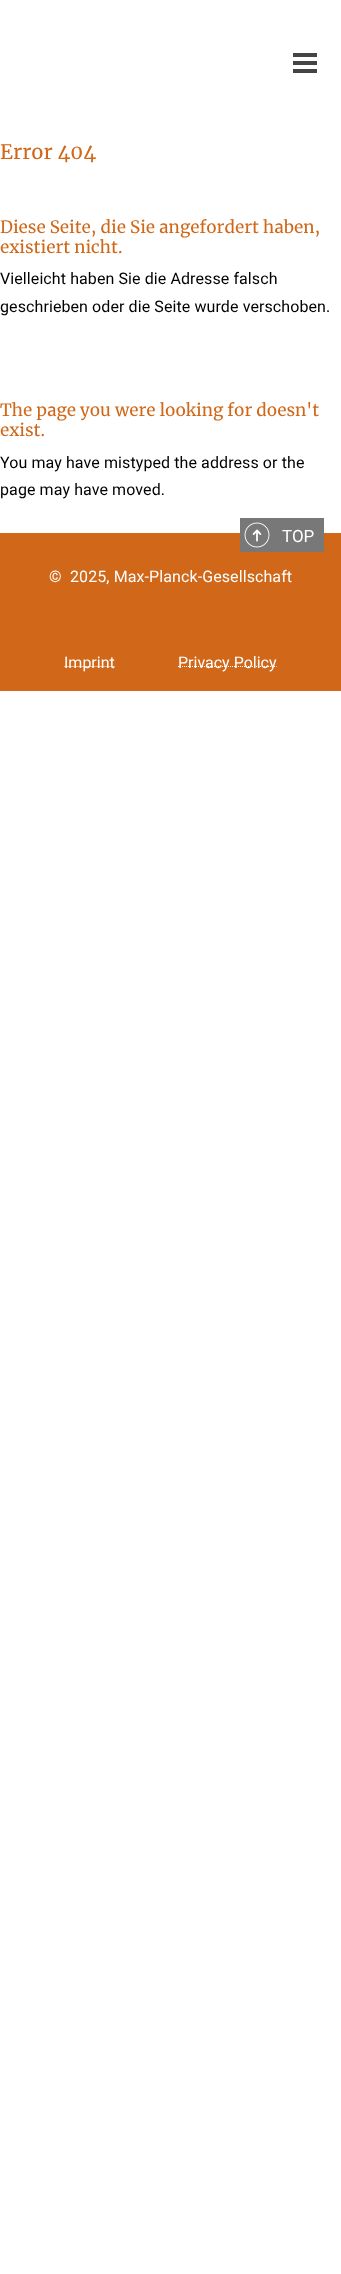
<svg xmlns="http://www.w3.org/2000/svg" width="341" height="2274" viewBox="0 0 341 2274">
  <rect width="100%" height="100%" fill="#ffffff"/>
  <rect x="293" y="53" width="24" height="4" fill="#444444"/>
  <rect x="293" y="61" width="24" height="4" fill="#444444"/>
  <rect x="293" y="69" width="24" height="4" fill="#444444"/>
  <text x="0" y="159" font-family="Merriweather" font-size="20" fill="#d06719">Error 404</text>
  <text x="0" y="233" font-family="Merriweather" font-size="17" fill="#d06719">Diese Seite, die Sie angefordert haben,</text>
  <text x="0" y="253" font-family="Merriweather" font-size="17" fill="#d06719">existiert nicht.</text>
  <text x="0" y="284" font-family="Roboto" font-size="16" letter-spacing="0.1" fill="#000000">Vielleicht haben Sie die Adresse falsch</text>
  <text x="0" y="312" font-family="Roboto" font-size="16" letter-spacing="0.1" fill="#000000">geschrieben oder die Seite wurde verschoben.</text>
  <text x="0" y="416" font-family="Merriweather" font-size="17" fill="#d06719">The page you were looking for doesn't</text>
  <text x="0" y="436" font-family="Merriweather" font-size="17" fill="#d06719">exist.</text>
  <text x="0" y="468" font-family="Roboto" font-size="16" letter-spacing="0.1" fill="#000000">You may have mistyped the address or the</text>
  <text x="0" y="495" font-family="Roboto" font-size="16" letter-spacing="0.1" fill="#000000">page may have moved.</text>
  <rect x="0" y="533" width="341" height="158" fill="#d06719"/>
  <rect x="240" y="518" width="84" height="34" fill="#787878"/>
  <image x="252" y="529" width="10" height="13" href="img1.png"/>
  <image x="244" y="522" width="26" height="26" href="img2.png"/>
  <text x="282" y="542" font-family="Roboto" font-size="17" fill="#ffffff">TOP</text>
  <text x="49" y="582" font-family="Roboto" font-size="16" fill="#ffffff">©</text>
  <text x="70" y="582" font-family="Roboto" font-size="16" letter-spacing="0.1" fill="#ffffff">2025, Max-Planck-Gesellschaft</text>
  <path d="M64.5 666.5H115" fill="none" stroke="#ffffff" stroke-dasharray="1 1"/>
  <text x="64" y="668" font-family="Roboto" font-size="16" fill="#ffffff">Imprint</text>
  <path d="M178 666.5H276.5" fill="none" stroke="#ffffff" stroke-dasharray="1 1"/>
  <text x="178" y="668" font-family="Roboto" font-size="16" fill="#ffffff">Privacy Policy</text>
</svg>
